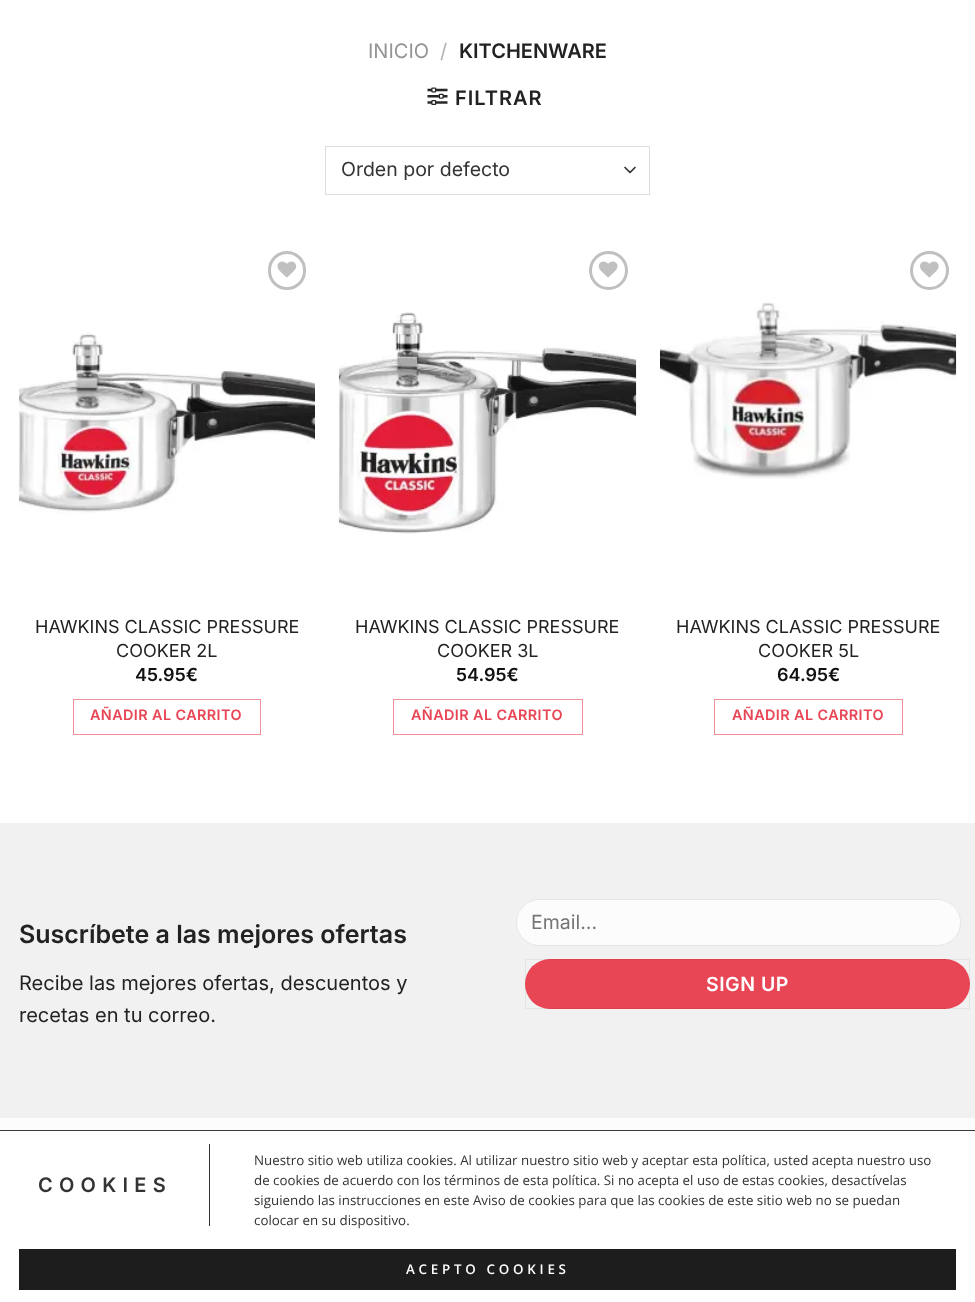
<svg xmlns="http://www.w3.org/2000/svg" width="975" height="1302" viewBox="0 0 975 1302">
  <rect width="100%" height="100%" fill="#ffffff"/>
  <text x="368" y="58" font-family="Inter" font-size="20" fill="#949494">INICIO</text>
  <text x="440" y="58" font-family="Inter" font-size="20" fill="#b2b2b2">/</text>
  <text x="459" y="58" font-family="Inter" font-size="20" font-weight="600" fill="#222222">KITCHENWARE</text>
  <image x="427" y="87" width="21" height="18" href="img1.png"/>
  <text x="455" y="105" font-family="Inter" font-size="20" font-weight="600" letter-spacing="1" fill="#222222">FILTRAR</text>
  <path d="M625 167.5L630 172.5L635 167.5" fill="none" stroke="#333333" stroke-width="1.7" stroke-linecap="round" stroke-linejoin="round"/>
  <rect x="325.5" y="146.5" width="324" height="48" fill="none" stroke="#dddddd"/>
  <text x="341" y="176" font-family="Inter" font-size="19.5" fill="#333333">Orden por defecto</text>
  <rect x="269.5" y="252.5" width="35" height="36" rx="17.5" fill="none" stroke="#c0c0c0" stroke-width="3"/>
  <image x="277" y="261" width="20" height="17" href="img2.png"/>
  <image x="18" y="332" width="297" height="182" href="img3.png"/>
  <text x="35" y="633" font-family="Inter" font-size="18" fill="#222222">HAWKINS CLASSIC PRESSURE</text>
  <text x="116" y="657" font-family="Inter" font-size="18" fill="#222222">COOKER 2L</text>
  <text x="135" y="681" font-family="Inter" font-size="18" font-weight="600" fill="#111111">45.95€</text>
  <rect x="73.5" y="699.5" width="187" height="35" fill="none" stroke="#f18f99"/>
  <text x="90" y="720" font-family="Inter" font-size="14.4" font-weight="600" letter-spacing="0.4" fill="#e84555">AÑADIR AL CARRITO</text>
  <circle cx="608.5" cy="270.5" r="18" fill="none" stroke="#c0c0c0" stroke-width="3"/>
  <image x="598" y="261" width="20" height="17" href="img4.png"/>
  <image x="338" y="312" width="299" height="222" href="img5.png"/>
  <text x="355" y="633" font-family="Inter" font-size="18" fill="#222222">HAWKINS CLASSIC PRESSURE</text>
  <text x="437" y="657" font-family="Inter" font-size="18" fill="#222222">COOKER 3L</text>
  <text x="456" y="681" font-family="Inter" font-size="18" font-weight="600" fill="#111111">54.95€</text>
  <rect x="393.5" y="699.5" width="189" height="35" fill="none" stroke="#f18f99"/>
  <text x="411" y="720" font-family="Inter" font-size="14.4" font-weight="600" letter-spacing="0.4" fill="#e84555">AÑADIR AL CARRITO</text>
  <circle cx="929.5" cy="270.5" r="18" fill="none" stroke="#c0c0c0" stroke-width="3"/>
  <image x="920" y="261" width="19" height="17" href="img6.png"/>
  <image x="660" y="302" width="297" height="177" href="img7.png"/>
  <text x="676" y="633" font-family="Inter" font-size="18" fill="#222222">HAWKINS CLASSIC PRESSURE</text>
  <text x="758" y="657" font-family="Inter" font-size="18" fill="#222222">COOKER 5L</text>
  <text x="777" y="681" font-family="Inter" font-size="18" font-weight="600" fill="#111111">64.95€</text>
  <rect x="714.5" y="699.5" width="188" height="35" fill="none" stroke="#f18f99"/>
  <text x="732" y="720" font-family="Inter" font-size="14.4" font-weight="600" letter-spacing="0.4" fill="#e84555">AÑADIR AL CARRITO</text>
  <rect x="0" y="823" width="975" height="295" fill="#f1f1f1"/>
  <text x="19" y="943" font-family="Inter" font-size="25" font-weight="600" fill="#222222">Suscríbete a las mejores ofertas</text>
  <text x="19" y="990" font-family="Inter" font-size="20" fill="#222222">Recibe las mejores ofertas, descuentos y</text>
  <text x="19" y="1022" font-family="Inter" font-size="20" fill="#222222">recetas en tu correo.</text>
  <rect x="516" y="899" width="445" height="47" rx="23.5" fill="#fcfcfc"/>
  <rect x="516.5" y="899.5" width="444" height="46" rx="23" fill="none" stroke="#000000" stroke-opacity="0.09"/>
  <text x="531" y="929" font-family="Inter" font-size="19.5" fill="#757575">Email...</text>
  <rect x="525" y="959" width="445" height="50" rx="25" fill="#e84555"/>
  <rect x="525.5" y="959.5" width="444" height="49" fill="none" stroke="#000000" stroke-opacity="0.05"/>
  <text x="706" y="991" font-family="Inter" font-size="19.5" font-weight="600" letter-spacing="0.5" fill="#ffffff">SIGN UP</text>
  <rect x="0" y="1118" width="975" height="12" fill="#fcfcfc"/>
  <rect x="0" y="1130" width="975" height="1" fill="#3b3939"/>
  <rect x="209" y="1144" width="1" height="82" fill="#333333"/>
  <text x="38" y="1192" font-family="Inter" font-size="20" font-weight="600" letter-spacing="6.25" fill="#333333">COOKIES</text>
  <text x="254" y="1165" font-family="Open Sans" font-size="13.33" fill="#333333">Nuestro sitio web utiliza cookies. Al utilizar nuestro sitio web y aceptar esta política, usted acepta nuestro uso</text>
  <text x="254" y="1185" font-family="Open Sans" font-size="13.33" fill="#333333">de cookies de acuerdo con los términos de esta política. Si no acepta el uso de estas cookies, desactívelas</text>
  <text x="254" y="1205" font-family="Open Sans" font-size="13.33" fill="#333333">siguiendo las instrucciones en este Aviso de cookies para que las cookies de este sitio web no se puedan</text>
  <text x="254" y="1225" font-family="Open Sans" font-size="13.33" fill="#333333">colocar en su dispositivo.</text>
  <rect x="19" y="1249" width="937" height="41" fill="#1d1d1d"/>
  <text x="406" y="1274" font-family="Open Sans" font-size="13.33" font-weight="600" letter-spacing="3.75" fill="#ffffff">ACEPTO COOKIES</text>
</svg>
